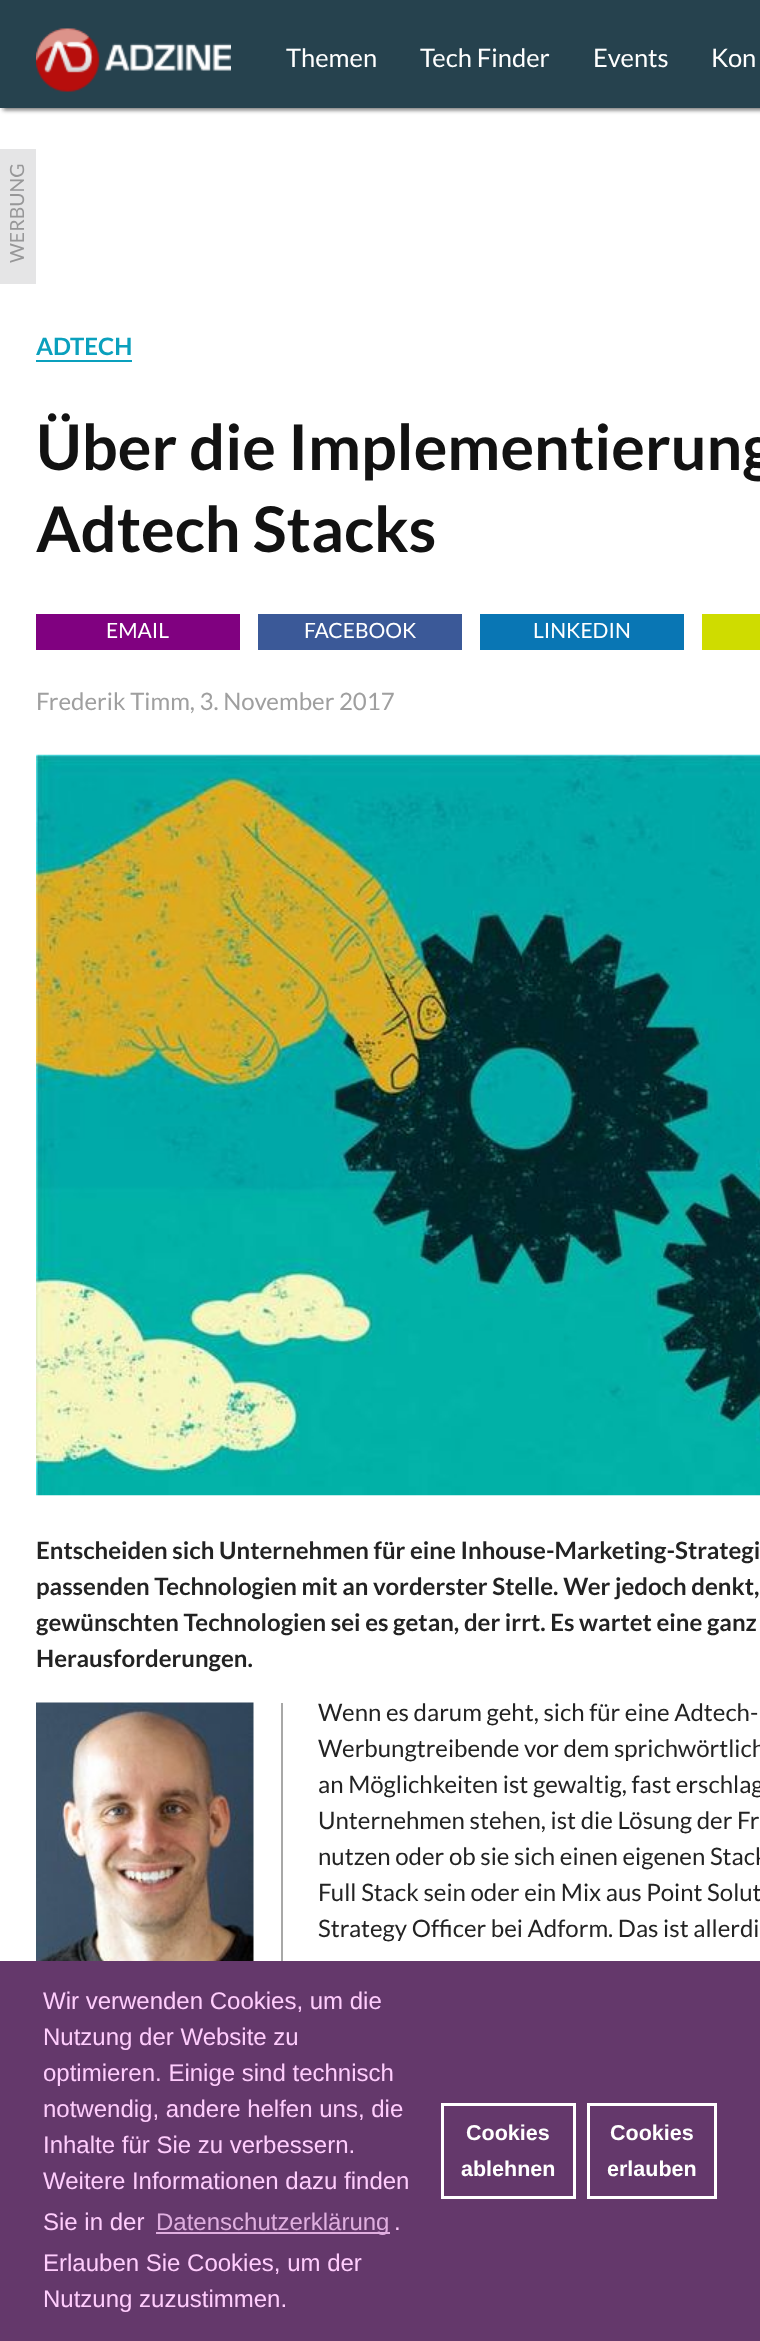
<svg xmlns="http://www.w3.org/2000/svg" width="760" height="2341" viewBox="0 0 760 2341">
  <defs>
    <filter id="blur1" x="-50%" y="-200%" width="200%" height="500%"><feGaussianBlur stdDeviation="2"/></filter>
  </defs>
  <rect width="100%" height="100%" fill="#ffffff"/>
  <rect x="3" y="8" width="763" height="102" fill="#171717" fill-opacity="0.6" filter="url(#blur1)"/>
  <rect x="0" y="0" width="760" height="108" fill="#26424e"/>
  <image x="36" y="28" width="195" height="64" href="img1.png"/>
  <text x="286" y="67" font-family="Lato" font-size="25.5" fill="#ffffff">Themen</text>
  <text x="420" y="67" font-family="Lato" font-size="25.5" fill="#ffffff">Tech Finder</text>
  <text x="593" y="67" font-family="Lato" font-size="25.5" fill="#ffffff">Events</text>
  <text x="711" y="67" font-family="Lato" font-size="25.5" fill="#ffffff">Kon</text>
  <rect x="0" y="149" width="36" height="135" fill="#e5e5e6"/>
  <text x="24" y="263" transform="rotate(-90 24 263)" font-family="Lato" font-size="19.5" fill="#979798">WERBUNG</text>
  <text x="36" y="355" font-family="Lato" font-size="24" font-weight="bold" fill="#0aa0bd">ADTECH</text>
  <rect x="36" y="360" width="96" height="2" fill="#0aa0bd"/>
  <text x="36" y="470" font-family="Lato" font-size="63" font-weight="bold" fill="#121212">Über die Implementierung</text>
  <text x="36" y="552" font-family="Lato" font-size="63" font-weight="bold" fill="#121212">Adtech Stacks</text>
  <rect x="36" y="614" width="204" height="36" fill="#800180"/>
  <text x="106" y="638" font-family="Lato" font-size="21" fill="#ffffff">EMAIL</text>
  <rect x="258" y="614" width="204" height="36" fill="#3b5998"/>
  <text x="304" y="638" font-family="Lato" font-size="21" fill="#ffffff">FACEBOOK</text>
  <rect x="480" y="614" width="204" height="36" fill="#0976b4"/>
  <text x="533" y="638" font-family="Lato" font-size="21" fill="#ffffff">LINKEDIN</text>
  <rect x="702" y="614" width="58" height="36" fill="#cfdc00"/>
  <text x="36" y="710" font-family="Lato" font-size="24" fill="#9f9f9f">Frederik Timm, 3. November 2017</text>
  <image x="36" y="754" width="724" height="742" href="img2.png"/>
  <text x="36" y="1559" font-family="Lato" font-size="24" font-weight="bold" fill="#232323">Entscheiden sich Unternehmen für eine Inhouse-Marketing-Strategi</text>
  <text x="36" y="1595" font-family="Lato" font-size="24" font-weight="bold" fill="#232323">passenden Technologien mit an vorderster Stelle. Wer jedoch denkt,</text>
  <text x="36" y="1631" font-family="Lato" font-size="24" font-weight="bold" fill="#232323">gewünschten Technologien sei es getan, der irrt. Es wartet eine ganz</text>
  <text x="36" y="1667" font-family="Lato" font-size="24" font-weight="bold" fill="#232323">Herausforderungen.</text>
  <rect x="281" y="1703" width="2" height="258" fill="#a8a8a7"/>
  <image x="36" y="1702" width="218" height="259" href="img3.png"/>
  <text x="318" y="1721" font-family="Lato" font-size="24" fill="#232323">Wenn es darum geht, sich für eine Adtech-</text>
  <text x="318" y="1757" font-family="Lato" font-size="24" fill="#232323">Werbungtreibende vor dem sprichwörtlich</text>
  <text x="318" y="1793" font-family="Lato" font-size="24" fill="#232323">an Möglichkeiten ist gewaltig, fast erschlag</text>
  <text x="318" y="1829" font-family="Lato" font-size="24" fill="#232323">Unternehmen stehen, ist die Lösung der Fr</text>
  <text x="318" y="1865" font-family="Lato" font-size="24" fill="#232323">nutzen oder ob sie sich einen eigenen Stack</text>
  <text x="318" y="1901" font-family="Lato" font-size="24" fill="#232323">Full Stack sein oder ein Mix aus Point Solut</text>
  <text x="318" y="1937" font-family="Lato" font-size="24" fill="#232323">Strategy Officer bei Adform. Das ist allerdi</text>
  <rect x="0" y="1961" width="760" height="380" fill="#64386b"/>
  <text x="43" y="2009" font-family="Liberation Sans" font-size="24" fill="#ffcdfd">Wir verwenden Cookies, um die</text>
  <text x="43" y="2045" font-family="Liberation Sans" font-size="24" fill="#ffcdfd">Nutzung der Website zu</text>
  <text x="43" y="2081" font-family="Liberation Sans" font-size="24" fill="#ffcdfd">optimieren. Einige sind technisch</text>
  <text x="43" y="2117" font-family="Liberation Sans" font-size="24" fill="#ffcdfd">notwendig, andere helfen uns, die</text>
  <text x="43" y="2153" font-family="Liberation Sans" font-size="24" fill="#ffcdfd">Inhalte für Sie zu verbessern.</text>
  <text x="43" y="2189" font-family="Liberation Sans" font-size="24" fill="#ffcdfd">Weitere Informationen dazu finden</text>
  <text x="43" y="2230" font-family="Liberation Sans" font-size="24" fill="#ffcdfd">Sie in der</text>
  <rect x="156" y="2232" width="234" height="2" fill="#e0afe0"/>
  <text x="156" y="2230" font-family="Liberation Sans" font-size="24" fill="#e0afe0">Datenschutzerklärung</text>
  <text x="394" y="2230" font-family="Liberation Sans" font-size="24" fill="#ffcdfd">.</text>
  <text x="43" y="2271" font-family="Liberation Sans" font-size="24" fill="#ffcdfd">Erlauben Sie Cookies, um der</text>
  <text x="43" y="2307" font-family="Liberation Sans" font-size="24" fill="#ffcdfd">Nutzung zuzustimmen.</text>
  <rect x="442.5" y="2104.5" width="132" height="93" fill="none" stroke="#ffffff" stroke-width="3"/>
  <text x="466" y="2140" font-family="Liberation Sans" font-size="21.5" font-weight="bold" fill="#ffffff">Cookies</text>
  <text x="461" y="2176" font-family="Liberation Sans" font-size="21.5" font-weight="bold" fill="#ffffff">ablehnen</text>
  <rect x="588.5" y="2104.5" width="127" height="93" fill="none" stroke="#ffffff" stroke-width="3"/>
  <text x="610" y="2140" font-family="Liberation Sans" font-size="21.5" font-weight="bold" fill="#ffffff">Cookies</text>
  <text x="607" y="2176" font-family="Liberation Sans" font-size="21.5" font-weight="bold" fill="#ffffff">erlauben</text>
</svg>
